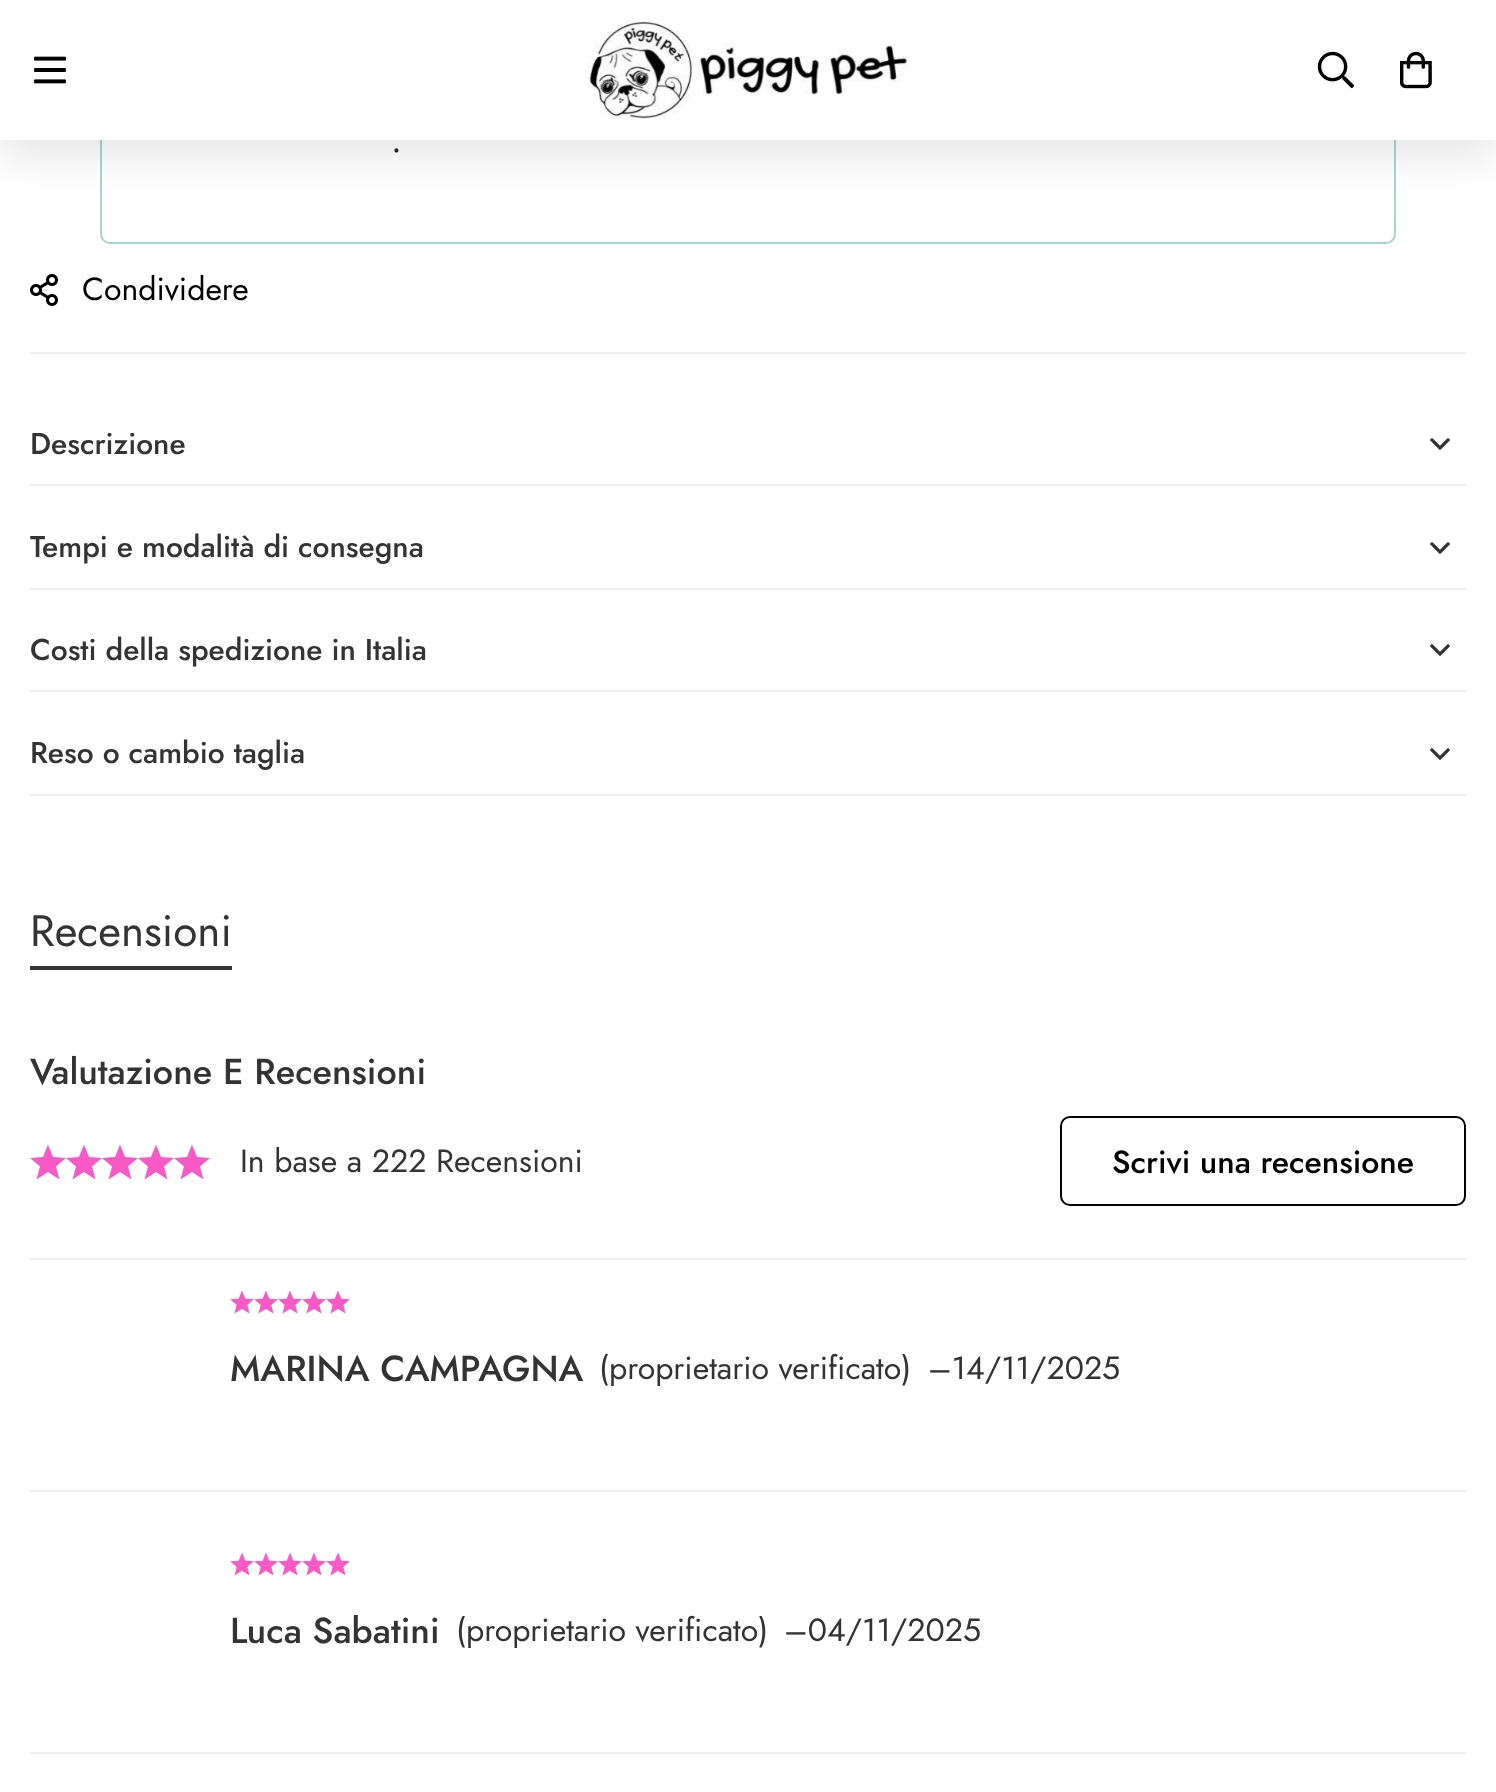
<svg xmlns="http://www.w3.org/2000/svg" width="1496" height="1792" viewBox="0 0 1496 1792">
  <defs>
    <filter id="blur1" x="-50%" y="-200%" width="200%" height="500%"><feGaussianBlur stdDeviation="20"/></filter>
  </defs>
  <rect width="100%" height="100%" fill="#ffffff"/>
  <rect x="101" y="-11" width="1294" height="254" rx="9" fill="none" stroke="#a3d8cd" stroke-width="2"/>
  <rect x="0" y="16" width="1496" height="140" fill="#000000" fill-opacity="0.1" filter="url(#blur1)"/>
  <rect x="0" y="0" width="1496" height="140" fill="#ffffff"/>
  <image x="34" y="56" width="32" height="28" href="img1.png"/>
  <image x="588" y="18" width="320" height="102" href="img2.png"/>
  <image x="1317" y="51" width="38" height="38" href="img3.png"/>
  <image x="1400" y="51" width="32" height="38" href="img4.png"/>
  <text x="392" y="152" font-family="Open Sans" font-size="34" fill="#1f1f1f">.</text>
  <rect x="30" y="352" width="1436" height="2" fill="#eeeeee"/>
  <image x="30" y="274" width="28" height="32" href="img5.png"/>
  <text x="82" y="300" font-family="Jost" font-size="32" fill="#000000">Condividere</text>
  <rect x="30" y="484" width="1436" height="2" fill="#eeeeee"/>
  <text x="30" y="454" font-family="Jost" font-size="30" font-weight="500" fill="#333333">Descrizione</text>
  <image x="1430" y="438" width="20" height="12" href="img6.png"/>
  <rect x="30" y="588" width="1436" height="2" fill="#eeeeee"/>
  <text x="30" y="557" font-family="Jost" font-size="30" font-weight="500" fill="#333333">Tempi e modalità di consegna</text>
  <image x="1430" y="542" width="20" height="12" href="img6.png"/>
  <rect x="30" y="690" width="1436" height="2" fill="#eeeeee"/>
  <text x="30" y="660" font-family="Jost" font-size="30" font-weight="500" fill="#333333">Costi della spedizione in Italia</text>
  <image x="1430" y="644" width="20" height="12" href="img6.png"/>
  <rect x="30" y="794" width="1436" height="2" fill="#eeeeee"/>
  <text x="30" y="763" font-family="Jost" font-size="30" font-weight="500" fill="#333333">Reso o cambio taglia</text>
  <image x="1430" y="748" width="20" height="12" href="img6.png"/>
  <text x="30" y="946" font-family="Jost" font-size="44" fill="#333333">Recensioni</text>
  <rect x="30" y="966" width="202" height="4" fill="#333333"/>
  <rect x="30" y="1258" width="1436" height="2" fill="#eeeeee"/>
  <text x="30" y="1084" font-family="Jost" font-size="36" font-weight="500" fill="#333333">Valutazione E Recensioni</text>
  <path d="M66 1158L53 1157L48 1144.5L43 1157L30 1158L40 1166.5L36.5 1179.5L48 1172L59.5 1179.5L56 1166.5Z" fill="#f959c4"/>
  <path d="M102 1158L89 1157L84 1144.5L79 1157L66 1158L76 1166.5L72.5 1179.5L84 1172L95.5 1179.5L92 1166.5Z" fill="#f959c4"/>
  <path d="M138 1158L125 1157L120 1144.5L115 1157L102 1158L112 1166.5L108.5 1179.5L120 1172L131.5 1179.5L128 1166.5Z" fill="#f959c4"/>
  <path d="M174 1158L161 1157L156 1144.5L151 1157L138 1158L148 1166.5L144.5 1179.5L156 1172L167.5 1179.5L164 1166.5Z" fill="#f959c4"/>
  <path d="M210 1158L197 1157L192 1144.5L187 1157L174 1158L184 1166.5L180.5 1179.5L192 1172L203.5 1179.5L200 1166.5Z" fill="#f959c4"/>
  <text x="240" y="1172" font-family="Jost" font-size="32" fill="#333333">In base a 222 Recensioni</text>
  <rect x="1061" y="1117" width="404" height="88" rx="9" fill="none" stroke="#000000" stroke-width="2"/>
  <text x="1112" y="1173" font-family="Jost" font-size="32" font-weight="500" fill="#000000">Scrivi una recensione</text>
  <rect x="30" y="1490" width="1436" height="2" fill="#eeeeee"/>
  <image x="230" y="1290" width="24" height="24" href="img7.png"/>
  <image x="254" y="1290" width="24" height="24" href="img7.png"/>
  <image x="278" y="1290" width="24" height="24" href="img7.png"/>
  <image x="302" y="1290" width="24" height="24" href="img7.png"/>
  <image x="326" y="1290" width="24" height="24" href="img7.png"/>
  <text x="230" y="1381" font-family="Jost" font-size="36" font-weight="500" fill="#333333">MARINA CAMPAGNA</text>
  <text x="599" y="1379" font-family="Jost" font-size="32" fill="#333333">(proprietario verificato)</text>
  <text x="928" y="1379" font-family="Jost" font-size="32" fill="#333333">–14/11/2025</text>
  <rect x="30" y="1752" width="1436" height="2" fill="#eeeeee"/>
  <image x="230" y="1552" width="24" height="24" href="img7.png"/>
  <image x="254" y="1552" width="24" height="24" href="img7.png"/>
  <image x="278" y="1552" width="24" height="24" href="img7.png"/>
  <image x="302" y="1552" width="24" height="24" href="img7.png"/>
  <image x="326" y="1552" width="24" height="24" href="img7.png"/>
  <text x="230" y="1643" font-family="Jost" font-size="36" font-weight="500" fill="#333333">Luca Sabatini</text>
  <text x="456" y="1641" font-family="Jost" font-size="32" fill="#333333">(proprietario verificato)</text>
  <text x="784" y="1641" font-family="Jost" font-size="32" fill="#333333">–04/11/2025</text>
</svg>
